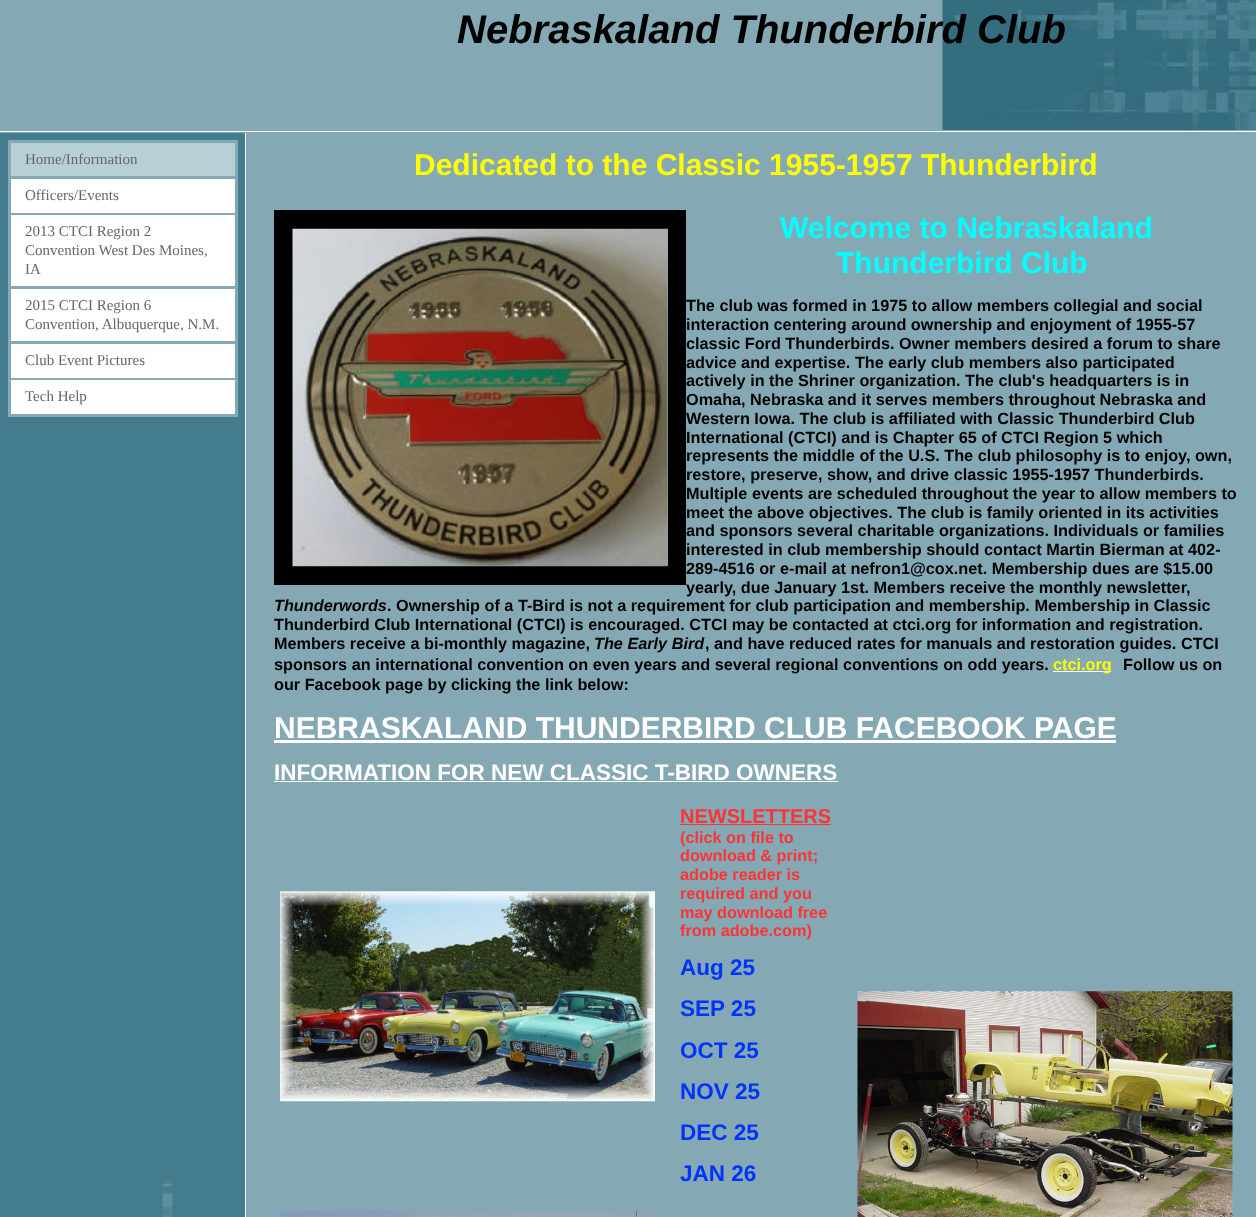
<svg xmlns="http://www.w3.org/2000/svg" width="1256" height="1217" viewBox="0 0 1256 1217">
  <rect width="100%" height="100%" fill="#84a8b4"/>
  <image x="942" y="0" width="314" height="130" href="img1.png"/>
  <rect x="0" y="131" width="1256" height="1" fill="#ffffff"/>
  <text x="457" y="43" font-family="Liberation Sans" font-size="40" font-weight="bold" font-style="italic" fill="#000000">Nebraskaland Thunderbird Club</text>
  <rect x="0" y="133" width="245" height="1084" fill="#437c8d"/>
  <image x="161" y="1180" width="14" height="37" href="img2.png"/>
  <rect x="9.5" y="141.5" width="227" height="36" fill="#b7d0d8" stroke="#85a9b5" stroke-width="3"/>
  <text x="25" y="164" font-family="Liberation Serif" font-size="15" fill="#666666">Home/Information</text>
  <rect x="11" y="179" width="224" height="34" fill="#ffffff"/>
  <rect x="235" y="179" width="3" height="237" fill="#85a9b5"/>
  <rect x="8" y="213" width="230" height="2" fill="#85a9b5"/>
  <rect x="8" y="179" width="3" height="36" fill="#85a9b5"/>
  <text x="25" y="200" font-family="Liberation Serif" font-size="15" fill="#666666">Officers/Events</text>
  <rect x="11" y="215" width="224" height="71" fill="#ffffff"/>
  <rect x="8" y="286" width="230" height="3" fill="#85a9b5"/>
  <rect x="8" y="215" width="3" height="74" fill="#85a9b5"/>
  <text x="25" y="236" font-family="Liberation Serif" font-size="15" fill="#666666">2013 CTCI Region 2</text>
  <text x="25" y="255" font-family="Liberation Serif" font-size="15" fill="#666666">Convention West Des Moines,</text>
  <text x="25" y="274" font-family="Liberation Serif" font-size="15" fill="#666666">IA</text>
  <rect x="11" y="289" width="224" height="52" fill="#ffffff"/>
  <rect x="8" y="341" width="230" height="3" fill="#85a9b5"/>
  <rect x="8" y="289" width="3" height="55" fill="#85a9b5"/>
  <text x="25" y="310" font-family="Liberation Serif" font-size="15" fill="#666666">2015 CTCI Region 6</text>
  <text x="25" y="329" font-family="Liberation Serif" font-size="15" fill="#666666">Convention, Albuquerque, N.M.</text>
  <rect x="11" y="344" width="224" height="34" fill="#ffffff"/>
  <rect x="8" y="378" width="230" height="2" fill="#85a9b5"/>
  <rect x="8" y="344" width="3" height="36" fill="#85a9b5"/>
  <text x="25" y="365" font-family="Liberation Serif" font-size="15" fill="#666666">Club Event Pictures</text>
  <rect x="11" y="380" width="224" height="34" fill="#ffffff"/>
  <rect x="8" y="414" width="230" height="3" fill="#85a9b5"/>
  <rect x="8" y="380" width="3" height="36" fill="#85a9b5"/>
  <text x="25" y="401" font-family="Liberation Serif" font-size="15" fill="#666666">Tech Help</text>
  <rect x="245" y="133" width="1" height="1084" fill="#ffffff"/>
  <text x="414" y="175" font-family="Liberation Sans" font-size="30" font-weight="bold" fill="#ffff00">Dedicated to the Classic 1955-1957 Thunderbird</text>
  <rect x="274" y="210" width="412" height="19" fill="#000000"/>
  <rect x="274" y="229" width="19" height="337" fill="#000000"/>
  <rect x="274" y="566" width="412" height="19" fill="#000000"/>
  <image x="292" y="228" width="376" height="339" href="img3.png"/>
  <rect x="668" y="229" width="18" height="337" fill="#000000"/>
  <text x="780" y="238" font-family="Liberation Sans" font-size="30" font-weight="bold" fill="#00ffff">Welcome to Nebraskaland</text>
  <text x="836" y="273" font-family="Liberation Sans" font-size="30" font-weight="bold" fill="#00ffff">Thunderbird Club</text>
  <text x="686" y="311" font-family="Liberation Sans" font-size="16.25" font-weight="bold" fill="#000000">The club was formed in 1975 to allow members collegial and social</text>
  <text x="686" y="330" font-family="Liberation Sans" font-size="16.25" font-weight="bold" fill="#000000">interaction centering around ownership and enjoyment of 1955-57</text>
  <text x="686" y="349" font-family="Liberation Sans" font-size="16.25" font-weight="bold" fill="#000000">classic Ford Thunderbirds. Owner members desired a forum to share</text>
  <text x="686" y="368" font-family="Liberation Sans" font-size="16.25" font-weight="bold" fill="#000000">advice and expertise. The early club members also participated</text>
  <text x="686" y="386" font-family="Liberation Sans" font-size="16.25" font-weight="bold" fill="#000000">actively in the Shriner organization. The club's headquarters is in</text>
  <text x="686" y="405" font-family="Liberation Sans" font-size="16.25" font-weight="bold" fill="#000000">Omaha, Nebraska and it serves members throughout Nebraska and</text>
  <text x="686" y="424" font-family="Liberation Sans" font-size="16.25" font-weight="bold" fill="#000000">Western Iowa. The club is affiliated with Classic Thunderbird Club</text>
  <text x="686" y="443" font-family="Liberation Sans" font-size="16.25" font-weight="bold" fill="#000000">International (CTCI) and is Chapter 65 of CTCI Region 5 which</text>
  <text x="686" y="461" font-family="Liberation Sans" font-size="16.25" font-weight="bold" fill="#000000">represents the middle of the U.S. The club philosophy is to enjoy, own,</text>
  <text x="686" y="480" font-family="Liberation Sans" font-size="16.25" font-weight="bold" fill="#000000">restore, preserve, show, and drive classic 1955-1957 Thunderbirds.</text>
  <text x="686" y="499" font-family="Liberation Sans" font-size="16.25" font-weight="bold" fill="#000000">Multiple events are scheduled throughout the year to allow members to</text>
  <text x="686" y="518" font-family="Liberation Sans" font-size="16.25" font-weight="bold" fill="#000000">meet the above objectives. The club is family oriented in its activities</text>
  <text x="686" y="536" font-family="Liberation Sans" font-size="16.25" font-weight="bold" fill="#000000">and sponsors several charitable organizations. Individuals or families</text>
  <text x="686" y="555" font-family="Liberation Sans" font-size="16.25" font-weight="bold" fill="#000000">interested in club membership should contact Martin Bierman at 402-</text>
  <text x="686" y="574" font-family="Liberation Sans" font-size="16.25" font-weight="bold" fill="#000000">289-4516 or e-mail at nefron1@cox.net. Membership dues are $15.00</text>
  <text x="686" y="593" font-family="Liberation Sans" font-size="16.25" font-weight="bold" fill="#000000">yearly, due January 1st. Members receive the monthly newsletter,</text>
  <text x="274" y="611" font-family="Liberation Sans" font-size="16.25" font-weight="bold" font-style="italic" fill="#000000">Thunderwords</text>
  <text x="387" y="611" font-family="Liberation Sans" font-size="16.25" font-weight="bold" fill="#000000">. Ownership of a T-Bird is not a requirement for club participation and membership. Membership in Classic</text>
  <text x="274" y="630" font-family="Liberation Sans" font-size="16.25" font-weight="bold" fill="#000000">Thunderbird Club International (CTCI) is encouraged. CTCI may be contacted at ctci.org for information and registration.</text>
  <text x="274" y="649" font-family="Liberation Sans" font-size="16.25" font-weight="bold" fill="#000000">Members receive a bi-monthly magazine,</text>
  <text x="594" y="649" font-family="Liberation Sans" font-size="16.25" font-weight="bold" font-style="italic" fill="#000000">The Early Bird</text>
  <text x="705" y="649" font-family="Liberation Sans" font-size="16.25" font-weight="bold" fill="#000000">, and have reduced rates for manuals and restoration guides. CTCI</text>
  <text x="274" y="670" font-family="Liberation Sans" font-size="16.25" font-weight="bold" fill="#000000">sponsors an international convention on even years and several regional conventions on odd years.</text>
  <rect x="1053" y="671" width="58" height="1" fill="#ffffff"/>
  <text x="1053" y="670" font-family="Liberation Sans" font-size="16.25" font-weight="bold" fill="#ffff00">ctci.org</text>
  <text x="1123" y="670" font-family="Liberation Sans" font-size="16.25" font-weight="bold" fill="#000000">Follow us on</text>
  <text x="274" y="690" font-family="Liberation Sans" font-size="16.25" font-weight="bold" fill="#000000">our Facebook page by clicking the link below:</text>
  <text x="274" y="738" font-family="Liberation Sans" font-size="30" font-weight="bold" fill="#ffffff">NEBRASKALAND THUNDERBIRD CLUB FACEBOOK PAGE</text>
  <rect x="274" y="740" width="842" height="3" fill="#ffffff"/>
  <text x="274" y="780" font-family="Liberation Sans" font-size="22.5" font-weight="bold" fill="#ffffff">INFORMATION FOR NEW CLASSIC T-BIRD OWNERS</text>
  <rect x="274" y="781" width="564" height="1" fill="#ffffff"/>
  <image x="280" y="891" width="375" height="211" href="img4.png"/>
  <text x="680" y="823" font-family="Liberation Sans" font-size="20" font-weight="bold" fill="#ff3333">NEWSLETTERS</text>
  <rect x="680" y="824" width="151" height="1" fill="#ff3333"/>
  <text x="680" y="843" font-family="Liberation Sans" font-size="16.25" font-weight="bold" fill="#ff3333">(click on file to</text>
  <text x="680" y="861" font-family="Liberation Sans" font-size="16.25" font-weight="bold" fill="#ff3333">download &amp; print;</text>
  <text x="680" y="880" font-family="Liberation Sans" font-size="16.25" font-weight="bold" fill="#ff3333">adobe reader is</text>
  <text x="680" y="899" font-family="Liberation Sans" font-size="16.25" font-weight="bold" fill="#ff3333">required and you</text>
  <text x="680" y="918" font-family="Liberation Sans" font-size="16.25" font-weight="bold" fill="#ff3333">may download free</text>
  <text x="680" y="936" font-family="Liberation Sans" font-size="16.25" font-weight="bold" fill="#ff3333">from adobe.com)</text>
  <text x="680" y="975" font-family="Liberation Sans" font-size="22.5" font-weight="bold" fill="#0033ff">Aug 25</text>
  <text x="680" y="1016" font-family="Liberation Sans" font-size="22.5" font-weight="bold" fill="#0033ff">SEP 25</text>
  <text x="680" y="1058" font-family="Liberation Sans" font-size="22.5" font-weight="bold" fill="#0033ff">OCT 25</text>
  <text x="680" y="1099" font-family="Liberation Sans" font-size="22.5" font-weight="bold" fill="#0033ff">NOV 25</text>
  <text x="680" y="1140" font-family="Liberation Sans" font-size="22.5" font-weight="bold" fill="#0033ff">DEC 25</text>
  <text x="680" y="1181" font-family="Liberation Sans" font-size="22.5" font-weight="bold" fill="#0033ff">JAN 26</text>
  <image x="857" y="991" width="376" height="226" href="img5.png"/>
  <image x="280" y="1211" width="375" height="6" href="img6.png"/>
</svg>
